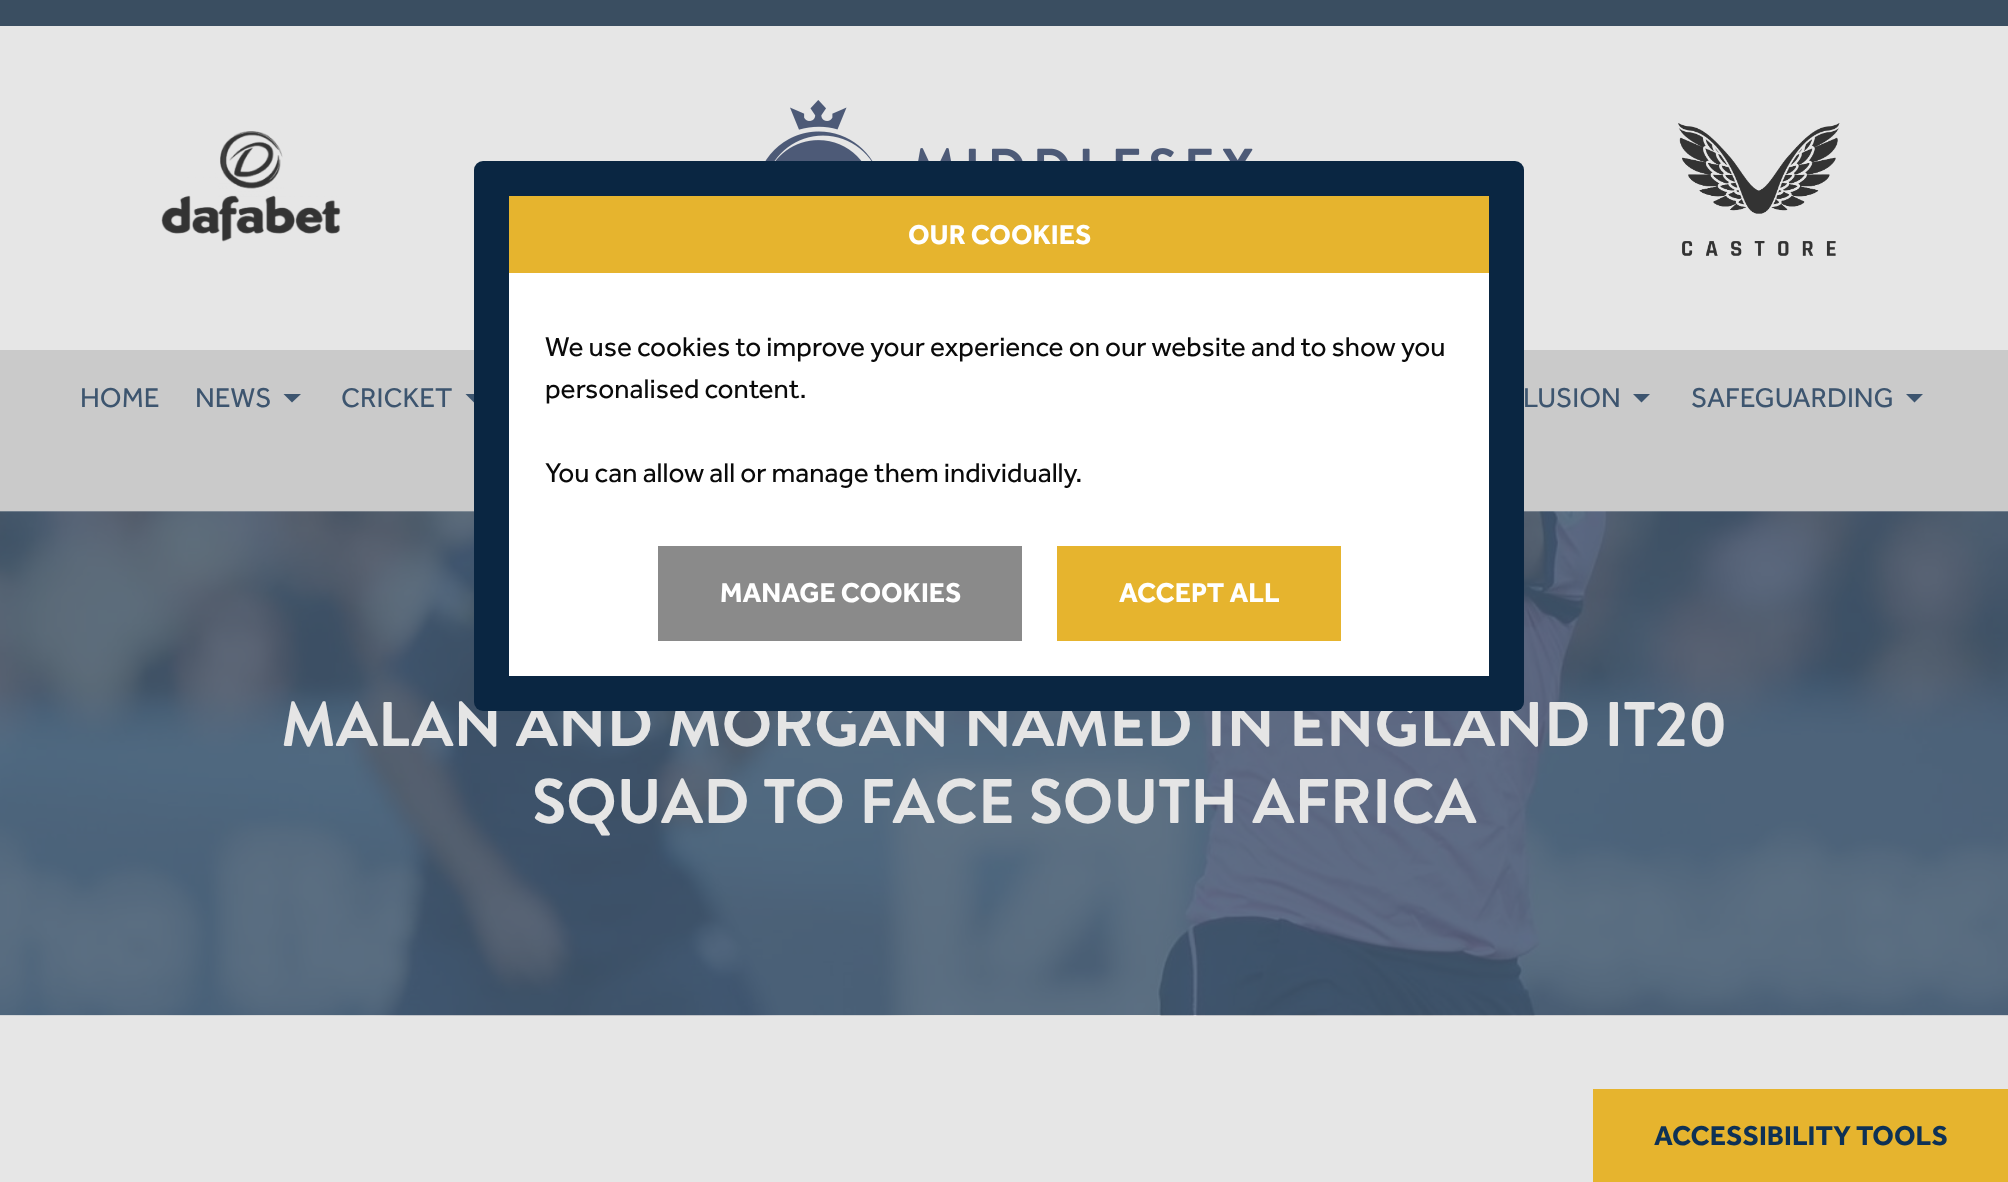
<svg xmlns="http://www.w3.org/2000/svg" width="2008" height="1182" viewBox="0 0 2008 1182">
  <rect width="100%" height="100%" fill="#e6e6e6"/>
  <rect x="0" y="0" width="2008" height="26" fill="#3a4e61"/>
  <image x="161" y="131" width="180" height="111" href="img1.png"/>
  <image x="765" y="100" width="488" height="61" href="img2.png"/>
  <image x="1678" y="123" width="162" height="133" href="img3.png"/>
  <rect x="0" y="350" width="2008" height="161" fill="#cacaca"/>
  <path d="M465.5 394H483L474 402.5Z" fill="#3d556f"/>
  <image x="0" y="511" width="2008" height="505" href="img4.png"/>
  <text x="281" y="746" font-family="Brandon Grotesque" font-size="63" font-weight="bold" fill="#e5e5e5">MALAN AND MORGAN NAMED IN ENGLAND IT20</text>
  <rect x="474" y="161" width="1050" height="550" rx="9" fill="#0a2642"/>
  <rect x="509" y="196" width="980" height="77" fill="#e6b42e"/>
  <text x="908" y="244" font-family="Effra" font-size="28" font-weight="bold" fill="#ffffff">OUR COOKIES</text>
  <rect x="509" y="273" width="980" height="403" fill="#ffffff"/>
  <text x="545" y="356" font-family="Effra" font-size="28" fill="#0a0a0a">We use cookies to improve your experience on our website and to show you</text>
  <text x="545" y="398" font-family="Effra" font-size="28" fill="#0a0a0a">personalised content.</text>
  <text x="545" y="482" font-family="Effra" font-size="28" fill="#0a0a0a">You can allow all or manage them individually.</text>
  <rect x="658" y="546" width="364" height="95" fill="#8a8a8a"/>
  <text x="720" y="602" font-family="Effra" font-size="28" font-weight="bold" fill="#ffffff">MANAGE COOKIES</text>
  <rect x="1057" y="546" width="284" height="95" fill="#e6b42e"/>
  <text x="1119" y="602" font-family="Effra" font-size="28" font-weight="bold" fill="#ffffff">ACCEPT ALL</text>
  <text x="80" y="407" font-family="Effra" font-size="28" fill="#3d556f">HOME</text>
  <text x="195" y="407" font-family="Effra" font-size="28" fill="#3d556f">NEWS</text>
  <path d="M283.5 394H301L292 402.5Z" fill="#3d556f"/>
  <text x="341" y="407" font-family="Effra" font-size="28" fill="#3d556f">CRICKET</text>
  <text x="1523" y="407" font-family="Effra" font-size="28" fill="#3d556f">LUSION</text>
  <path d="M1633 394H1650L1641.5 402.5Z" fill="#3d556f"/>
  <text x="1691" y="407" font-family="Effra" font-size="28" fill="#3d556f">SAFEGUARDING</text>
  <path d="M1906 394H1923L1914.5 402.5Z" fill="#3d556f"/>
  <text x="532" y="823" font-family="Brandon Grotesque" font-size="63" font-weight="bold" fill="#e5e5e5">SQUAD TO FACE SOUTH AFRICA</text>
  <rect x="1593" y="1089" width="415" height="93" fill="#e6b42e"/>
  <text x="1654" y="1145" font-family="Effra" font-size="28" font-weight="bold" fill="#0e3155">ACCESSIBILITY TOOLS</text>
</svg>
